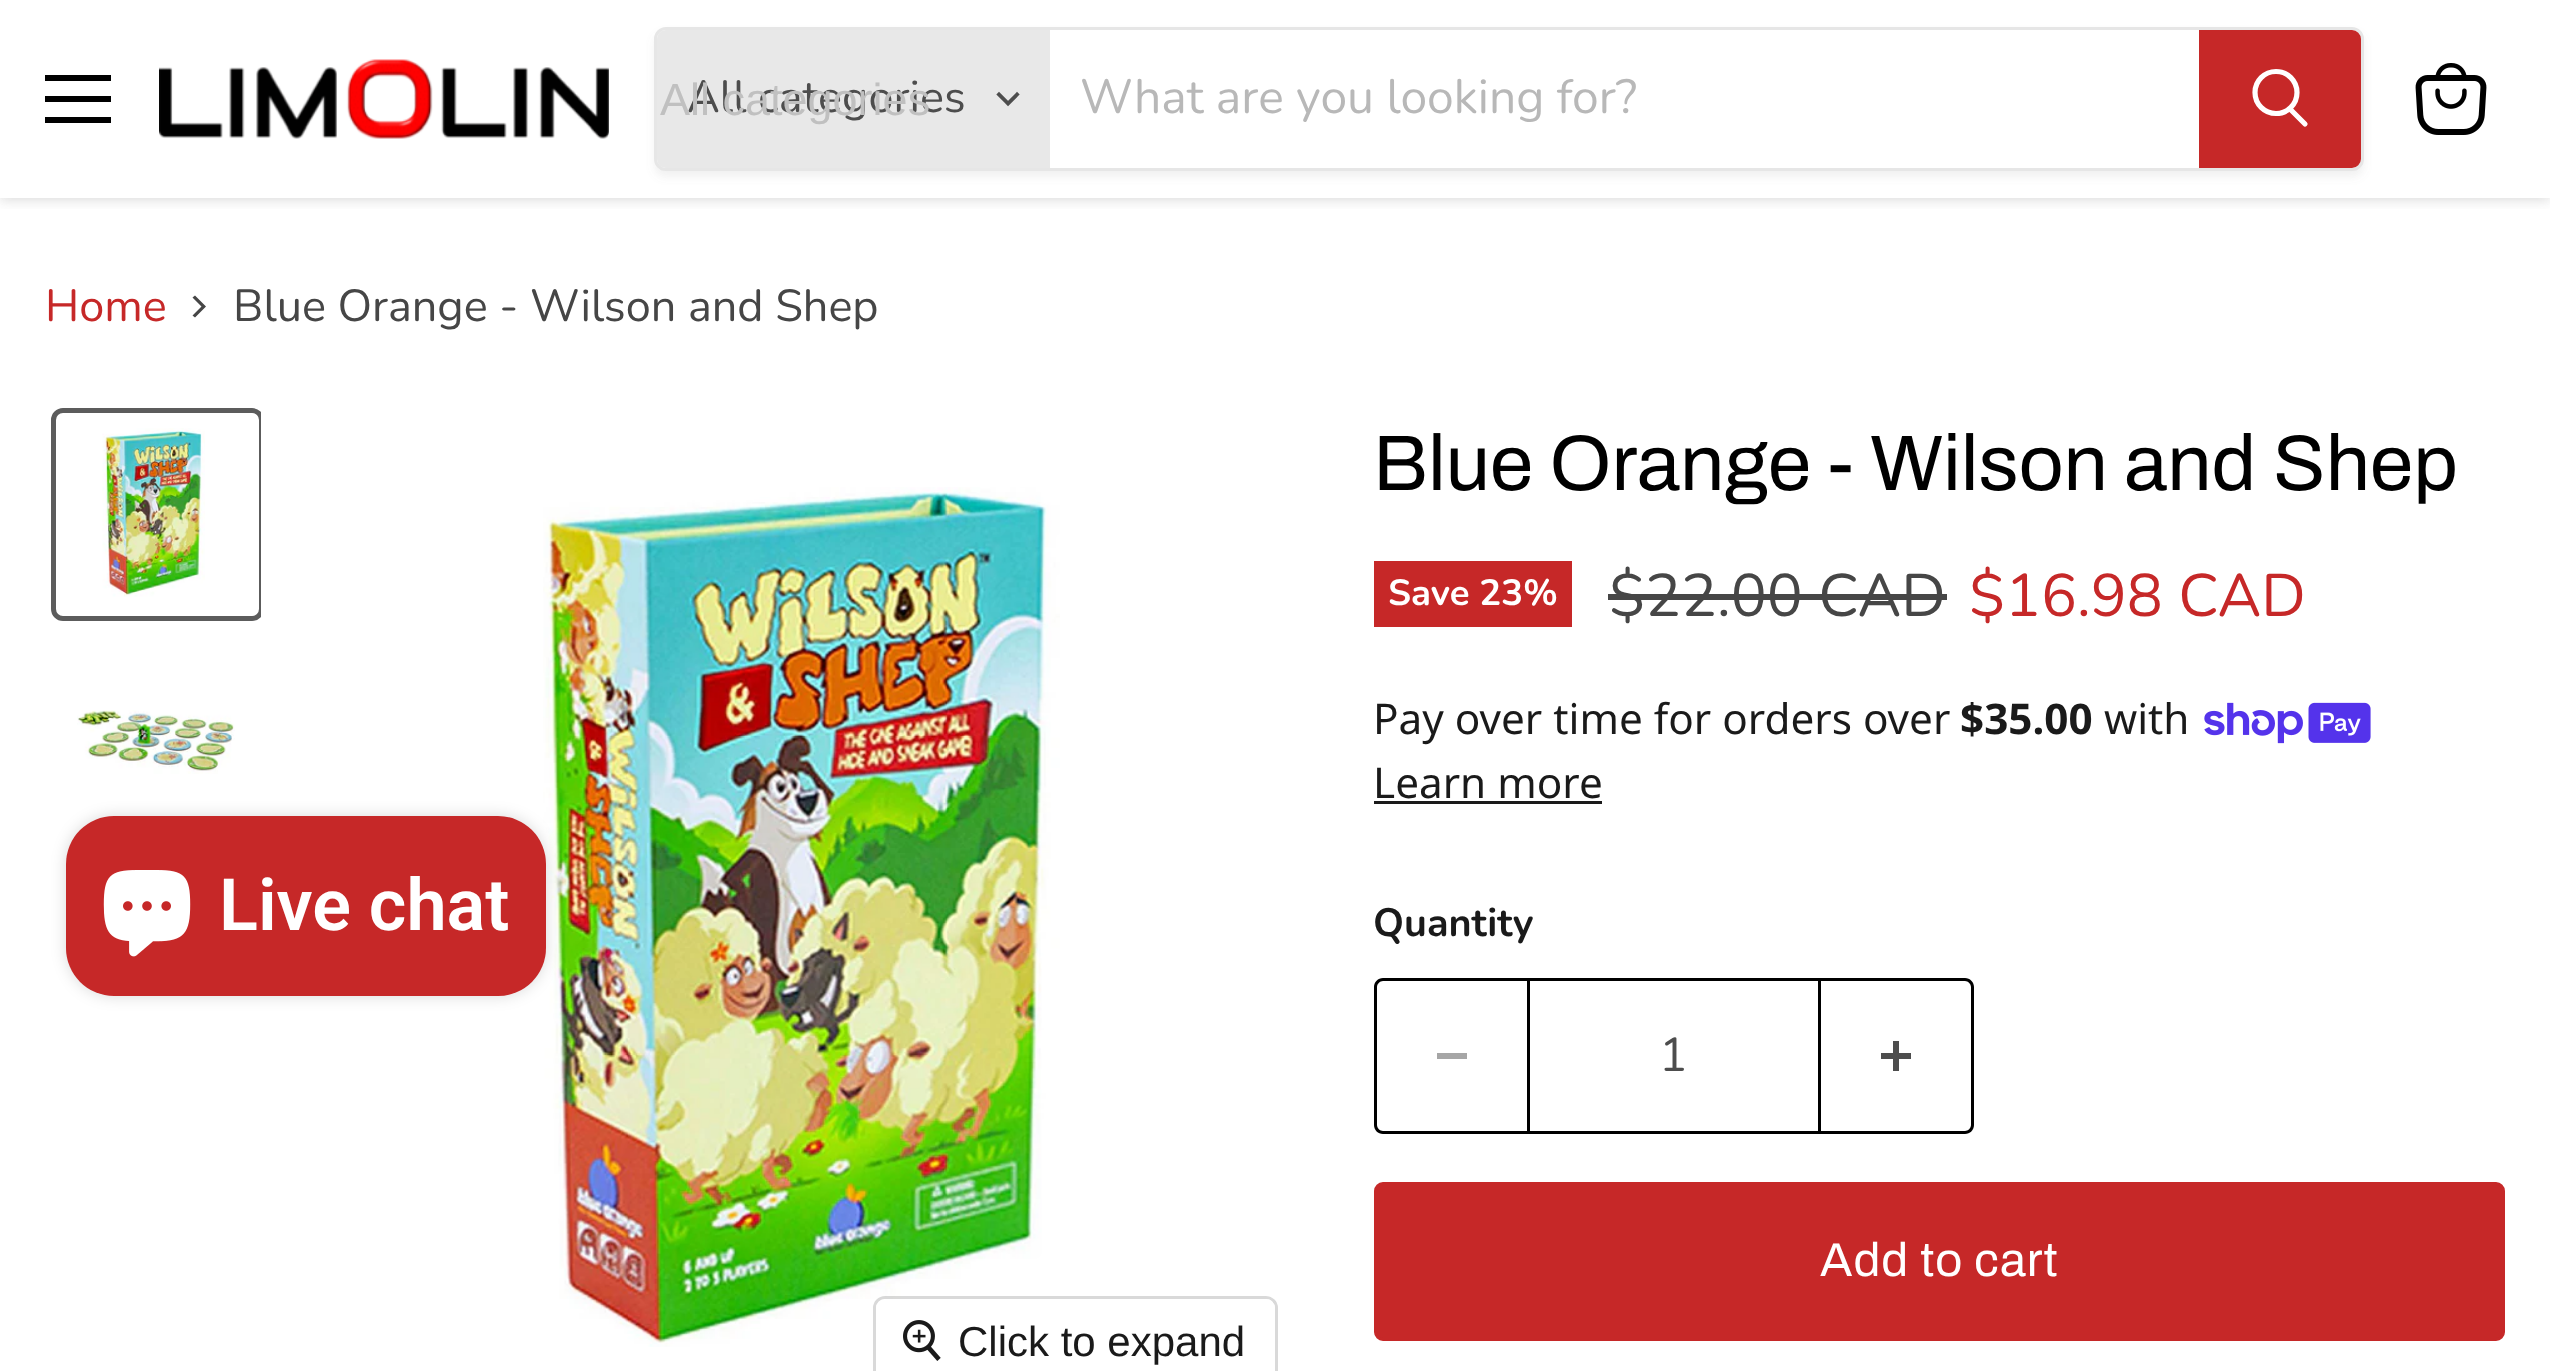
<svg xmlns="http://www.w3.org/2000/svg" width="2550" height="1371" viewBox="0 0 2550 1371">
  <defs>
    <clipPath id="clip1"><rect x="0" y="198" width="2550" height="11"/></clipPath>
    <filter id="blur1" x="-50%" y="-200%" width="200%" height="500%"><feGaussianBlur stdDeviation="6"/></filter>
    <clipPath id="clip2"><path d="M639 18H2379V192H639ZM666 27H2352C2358.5 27 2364 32.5 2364 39V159C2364 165.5 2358.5 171 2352 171H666C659.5 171 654 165.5 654 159V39C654 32.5 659.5 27 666 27Z" clip-rule="evenodd"/></clipPath>
    <filter id="blur2" x="-50%" y="-200%" width="200%" height="500%"><feGaussianBlur stdDeviation="4.5"/></filter>
    <clipPath id="clip3"><rect x="45" y="402" width="216" height="444"/></clipPath>
    <filter id="blur3" x="-50%" y="-200%" width="200%" height="500%"><feGaussianBlur stdDeviation="7.5"/></filter>
  </defs>
  <rect width="100%" height="100%" fill="#ffffff"/>
  <g clip-path="url(#clip1)">
    <rect x="0" y="3" width="2550" height="198" fill="#808080" fill-opacity="0.25" filter="url(#blur1)"/>
  </g>
  <rect x="45" y="75" width="66" height="6" fill="#000000"/>
  <rect x="45" y="96" width="66" height="6" fill="#000000"/>
  <rect x="45" y="117" width="66" height="6" fill="#000000"/>
  <image x="159" y="59" width="450" height="80" href="img1.png"/>
  <g clip-path="url(#clip2)">
    <rect x="654" y="33" width="1710" height="144" rx="12" fill="#808080" fill-opacity="0.11" filter="url(#blur2)"/>
  </g>
  <rect x="655.5" y="28.5" width="1707" height="141" rx="10.5" fill="none" stroke="#808080" stroke-opacity="0.2" stroke-width="3"/>
  <path d="M666 30H1050V168H666C661 168 657 164 657 159V39C657 34 661 30 666 30Z" fill="#e8e8e8"/>
  <text x="687" y="112" font-family="Nunito" font-size="45" fill="#4d4d4d">All categories</text>
  <text x="660" y="115" font-family="Liberation Sans" font-size="45" fill="#c0c0c0">All categories</text>
  <path d="M1008 103.5L1017 94.5M1008 103.5L999 94.5" fill="none" stroke="#4d4d4d" stroke-width="3.8" stroke-linecap="square"/>
  <text x="1080" y="113" font-family="Nunito" font-size="48" fill="#b8b8b8">What are you looking for?</text>
  <path d="M2200.5 31.5H2352C2356 31.5 2359.5 35 2359.5 39V159C2359.5 163 2356 166.5 2352 166.5H2200.5Z" fill="#c62828" stroke="#c62828" stroke-width="3"/>
  <path d="M2305 124L2290.5 109.5" fill="none" stroke="#ffffff" stroke-width="5.2" stroke-linecap="round"/>
  <circle cx="2276" cy="92.5" r="21" fill="none" stroke="#ffffff" stroke-width="5.2"/>
  <image x="2415" y="63" width="72" height="72" href="img2.png"/>
  <text x="45" y="321" font-family="Nunito" font-size="45" fill="#c62828">Home</text>
  <path d="M192.5 315.5L195 317.5L206 306.5L195 295.5L192.5 297.5L201.5 306.5Z" fill="#464646" fill-rule="evenodd"/>
  <text x="233" y="321" font-family="Nunito" font-size="45" fill="#464646">Blue Orange - Wilson and Shep</text>
  <text x="1373" y="490" font-family="Archivo" font-size="78.75" fill="#000000">Blue Orange - Wilson and Shep</text>
  <rect x="1374" y="561" width="198" height="66" fill="#c62828"/>
  <text x="1388" y="605" font-family="Nunito" font-size="36.5" font-weight="bold" fill="#ffffff">Save 23%</text>
  <text x="1609" y="616" font-family="Nunito" font-size="60" fill="#464646">$22.00 CAD</text>
  <rect x="1608" y="594" width="339" height="6" fill="#464646"/>
  <text x="1969" y="616" font-family="Nunito" font-size="60" fill="#c62828">$16.98 CAD</text>
  <text x="1373" y="734" font-family="Noto Sans" font-size="42.25" fill="#1a1a1a">Pay over time for orders over</text>
  <text x="1960" y="734" font-family="Noto Sans" font-size="42.25" font-weight="bold" fill="#1a1a1a">$35.00</text>
  <text x="2104" y="734" font-family="Noto Sans" font-size="42.25" fill="#1a1a1a">with</text>
  <image x="2204" y="702" width="167" height="42" href="img3.png"/>
  <text x="1373" y="798" font-family="Noto Sans" font-size="42.25" fill="#1a1a1a">Learn more</text>
  <rect x="1374" y="801" width="228" height="3" fill="#1a1a1a"/>
  <text x="1373" y="936" font-family="Nunito" font-size="39.5" font-weight="bold" fill="#1a1a1a">Quantity</text>
  <path d="M1383 978H1527V1134H1383C1378 1134 1374 1130 1374 1125V987C1374 982 1378 978 1383 978ZM1383 981H1527V1131H1383C1380 1131 1377 1128 1377 1125V987C1377 984 1380 981 1383 981Z" fill="#000000" fill-rule="evenodd"/>
  <rect x="1437" y="1053" width="30" height="6" fill="#a6a6a6"/>
  <rect x="1528.5" y="979.5" width="291" height="153" fill="none" stroke="#000000" stroke-width="3"/>
  <text x="1659" y="1071" font-family="Nunito" font-size="47.5" fill="#4d4d4d">1</text>
  <path d="M1821 978H1965C1970 978 1974 982 1974 987V1125C1974 1130 1970 1134 1965 1134H1821ZM1821 981H1965C1968 981 1971 984 1971 987V1125C1971 1128 1968 1131 1965 1131H1821Z" fill="#000000" fill-rule="evenodd"/>
  <image x="1881" y="1041" width="30" height="30" href="img4.png"/>
  <rect x="1375.5" y="1183.5" width="1128" height="156" rx="7.5" fill="#c62828" stroke="#c62828" stroke-width="3"/>
  <text x="1820" y="1276" font-family="Archivo" font-size="47.5" letter-spacing="1" fill="#ffffff">Add to cart</text>
  <g clip-path="url(#clip3)">
    <rect x="53.5" y="410.5" width="208" height="208" rx="9.5" fill="none" stroke="#5c5c5c" stroke-width="5"/>
  </g>
  <image x="102" y="428" width="103" height="169" href="img5.png"/>
  <image x="77" y="710" width="158" height="64" href="img6.png"/>
  <image x="543" y="487" width="517" height="860" href="img7.png"/>
  <rect x="874.5" y="1297.5" width="402" height="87" rx="10.5" fill="none" stroke="#000000" stroke-opacity="0.15" stroke-width="3"/>
  <rect x="876" y="1299" width="399" height="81" rx="9" fill="#ffffff" fill-opacity="0.9"/>
  <image x="903" y="1320" width="38" height="41" href="img8.png"/>
  <text x="958" y="1356" font-family="Liberation Sans" font-size="42" fill="#1a1a1a">Click to expand</text>
  <rect x="66" y="816" width="480" height="180" rx="48" fill="#000000" fill-opacity="0.15" filter="url(#blur3)"/>
  <rect x="66" y="816" width="480" height="180" rx="48" fill="#c62828"/>
  <image x="103" y="870" width="88" height="87" href="img9.png"/>
  <text x="219" y="930" font-family="Roboto" font-size="72" font-weight="600" fill="#ffffff">Live chat</text>
</svg>
